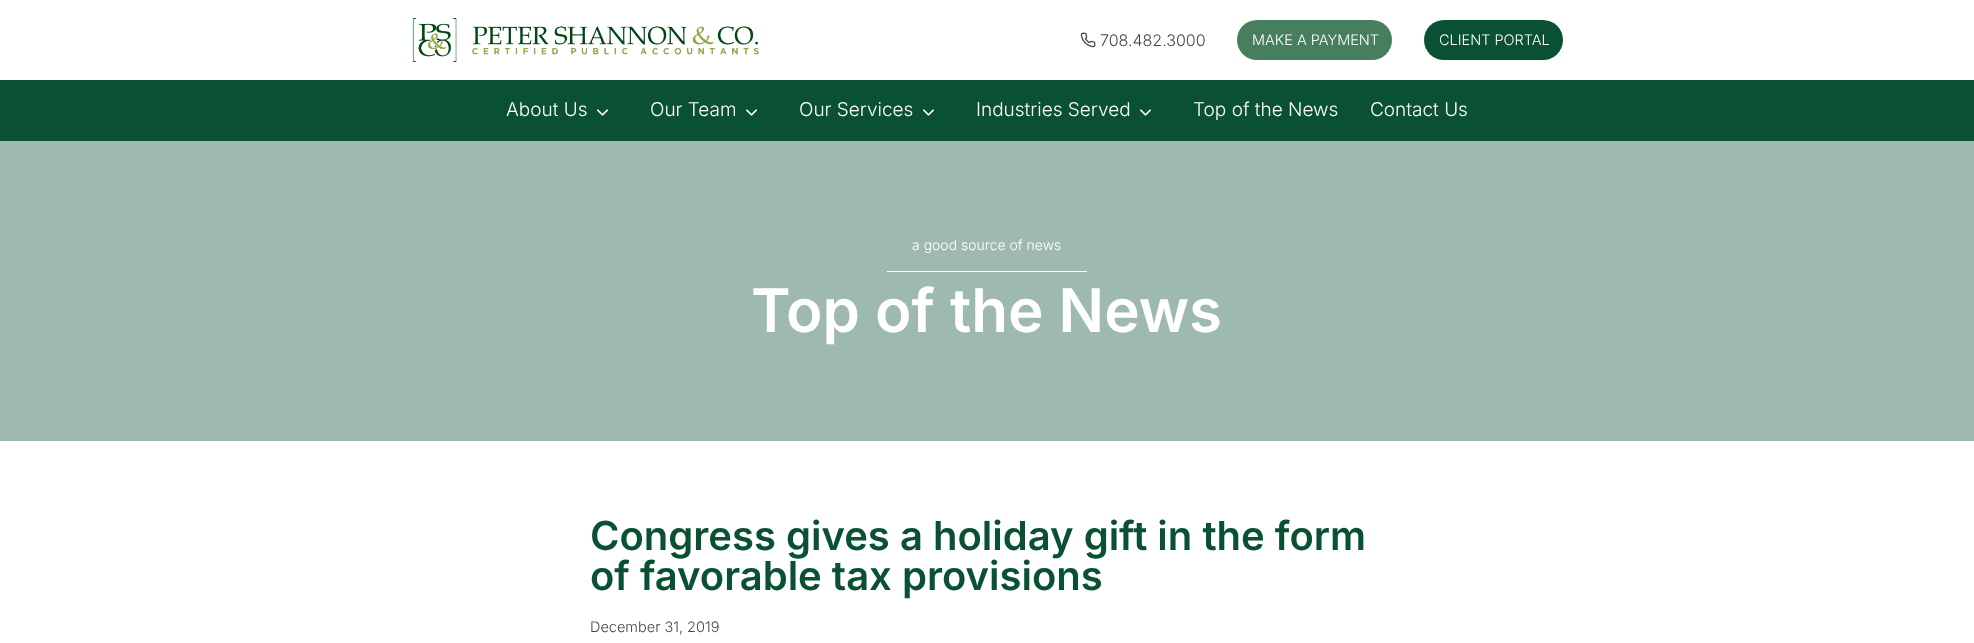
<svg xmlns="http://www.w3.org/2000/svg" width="1974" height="643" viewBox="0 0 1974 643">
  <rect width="100%" height="100%" fill="#ffffff"/>
  <image x="412" y="18" width="347" height="44" href="img1.png"/>
  <image x="1080" y="32" width="16" height="16" href="img2.png"/>
  <text x="1100" y="46" font-family="Inter" font-size="16" font-weight="300" fill="#454545">708.482.3000</text>
  <rect x="1237" y="20" width="155" height="40" rx="20" fill="#477e5e"/>
  <text x="1252" y="45" font-family="Inter" font-size="14.5" font-weight="300" fill="#ffffff">MAKE A PAYMENT</text>
  <rect x="1424" y="20" width="139" height="40" rx="20" fill="#0a5133"/>
  <text x="1439" y="45" font-family="Inter" font-size="14.5" font-weight="300" fill="#ffffff">CLIENT PORTAL</text>
  <rect x="0" y="80" width="1974" height="61" fill="#0a5133"/>
  <text x="506" y="116" font-family="Inter" font-size="19" font-weight="300" fill="#ffffff">About Us</text>
  <image x="597" y="109" width="11" height="7" href="img3.png"/>
  <text x="650" y="116" font-family="Inter" font-size="19" font-weight="300" fill="#ffffff">Our Team</text>
  <image x="746" y="109" width="11" height="7" href="img3.png"/>
  <text x="799" y="116" font-family="Inter" font-size="19" font-weight="300" fill="#ffffff">Our Services</text>
  <image x="923" y="109" width="11" height="7" href="img3.png"/>
  <text x="976" y="116" font-family="Inter" font-size="19" font-weight="300" fill="#ffffff">Industries Served</text>
  <image x="1140" y="109" width="11" height="7" href="img3.png"/>
  <text x="1193" y="116" font-family="Inter" font-size="19" font-weight="300" fill="#ffffff">Top of the News</text>
  <text x="1370" y="116" font-family="Inter" font-size="19" font-weight="300" fill="#ffffff">Contact Us</text>
  <rect x="0" y="141" width="1974" height="300" fill="#9ebaae"/>
  <rect x="887" y="271" width="200" height="1" fill="#ffffff"/>
  <text x="912" y="250" font-family="Inter" font-size="14" font-weight="300" fill="#ffffff">a good source of news</text>
  <text x="751" y="332" font-family="Inter" font-size="60" font-weight="600" fill="#ffffff">Top of the News</text>
  <text x="590" y="550" font-family="Inter" font-size="40" font-weight="600" fill="#0a5133">Congress gives a holiday gift in the form</text>
  <text x="590" y="590" font-family="Inter" font-size="40" font-weight="600" fill="#0a5133">of favorable tax provisions</text>
  <text x="590" y="632" font-family="Inter" font-size="14.5" font-weight="300" fill="#454545">December 31, 2019</text>
</svg>
